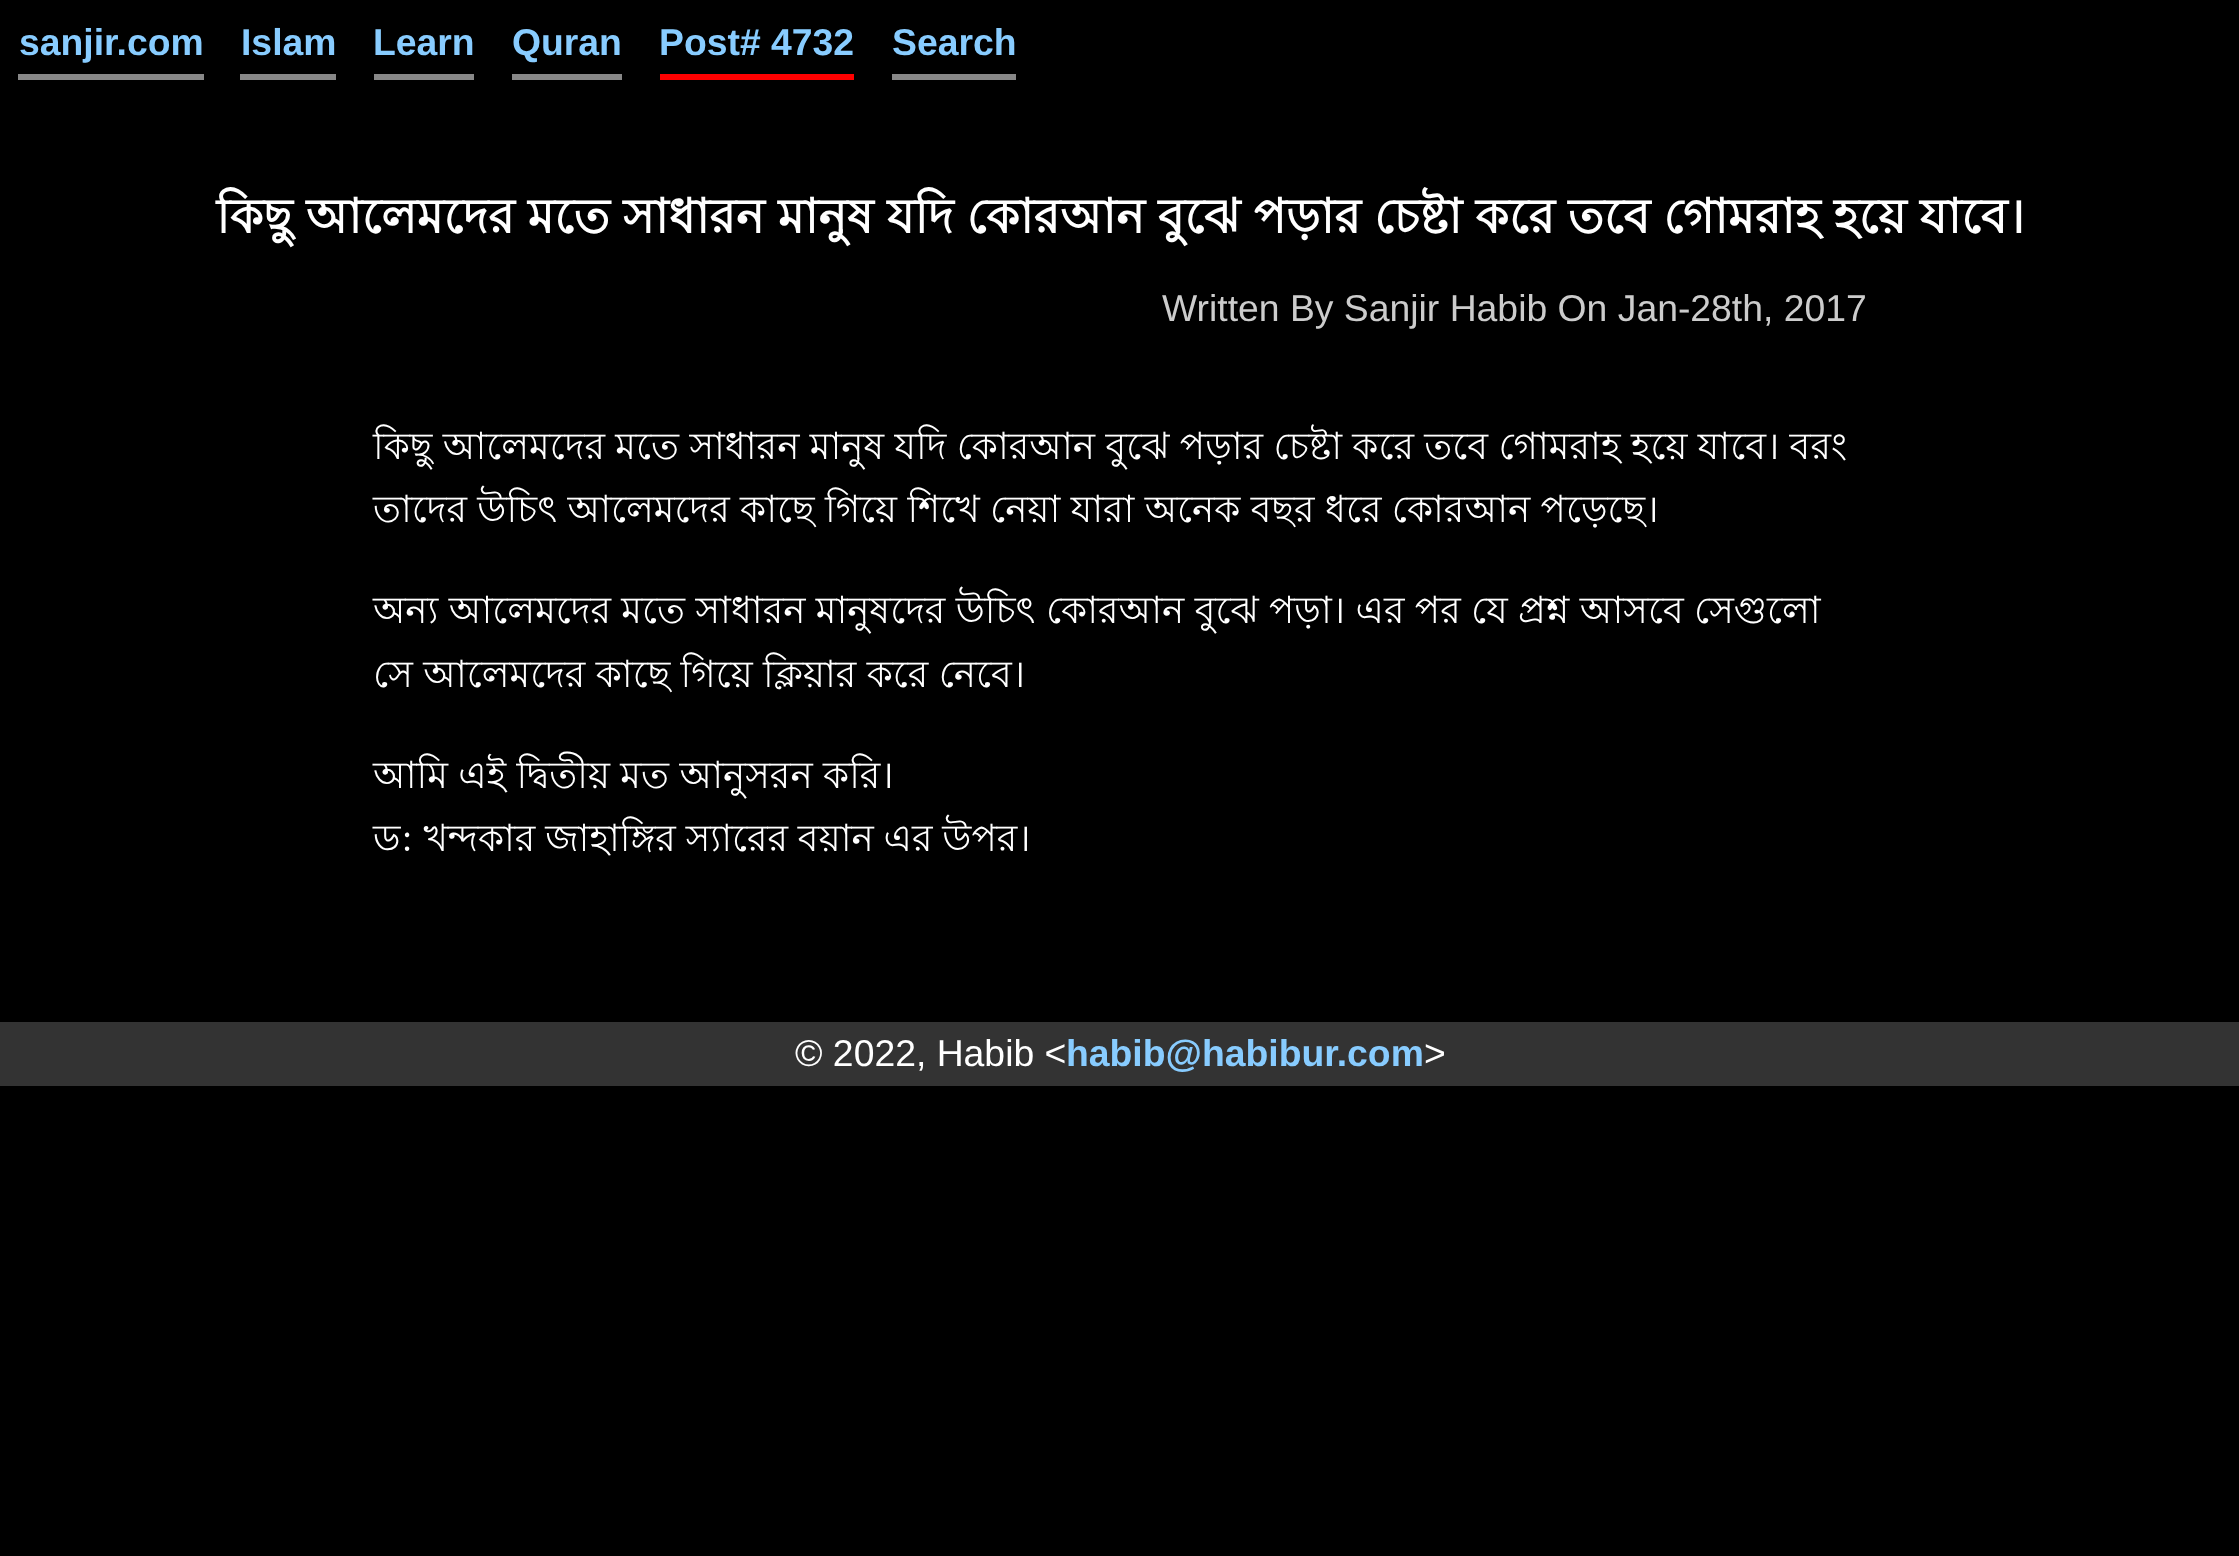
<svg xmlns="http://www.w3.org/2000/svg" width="2239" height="1556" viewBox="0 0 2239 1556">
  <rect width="100%" height="100%" fill="#000000"/>
  <rect x="18" y="74" width="186" height="6" fill="#888888"/>
  <text x="19" y="55" font-family="Liberation Sans" font-size="37.35" font-weight="bold" fill="#88ccff">sanjir.com</text>
  <rect x="240" y="74" width="96" height="6" fill="#888888"/>
  <text x="241" y="55" font-family="Liberation Sans" font-size="37.35" font-weight="bold" fill="#88ccff">Islam</text>
  <rect x="374" y="74" width="100" height="6" fill="#888888"/>
  <text x="373" y="55" font-family="Liberation Sans" font-size="37.35" font-weight="bold" fill="#88ccff">Learn</text>
  <rect x="512" y="74" width="110" height="6" fill="#888888"/>
  <text x="512" y="55" font-family="Liberation Sans" font-size="37.35" font-weight="bold" fill="#88ccff">Quran</text>
  <rect x="660" y="74" width="194" height="6" fill="#ff0000"/>
  <text x="659" y="55" font-family="Liberation Sans" font-size="37.35" font-weight="bold" fill="#88ccff">Post# 4732</text>
  <rect x="892" y="74" width="124" height="6" fill="#888888"/>
  <text x="892" y="55" font-family="Liberation Sans" font-size="37.35" font-weight="bold" fill="#88ccff">Search</text>
  <text x="216" y="233" font-family="Lohit Bengali" font-size="48" font-weight="bold" fill="#ffffff">কিছু আলেমদের মতে সাধারন মানুষ যদি কোরআন বুঝে পড়ার চেষ্টা করে তবে গোমরাহ হয়ে যাবে।</text>
  <text x="1162" y="321" font-family="Liberation Sans" font-size="37.35" fill="#cccccc">Written By Sanjir Habib On Jan-28th, 2017</text>
  <text x="373" y="459" font-family="Lohit Bengali" font-size="37.35" fill="#ffffff">কিছু আলেমদের মতে সাধারন মানুষ যদি কোরআন বুঝে পড়ার চেষ্টা করে তবে গোমরাহ হয়ে যাবে। বরং</text>
  <text x="373" y="522" font-family="Lohit Bengali" font-size="37.35" fill="#ffffff">তাদের উচিৎ আলেমদের কাছে গিয়ে শিখে নেয়া যারা অনেক বছর ধরে কোরআন পড়েছে।</text>
  <text x="373" y="623" font-family="Lohit Bengali" font-size="37.35" fill="#ffffff">অন্য আলেমদের মতে সাধারন মানুষদের উচিৎ কোরআন বুঝে পড়া। এর পর যে প্রশ্ন আসবে সেগুলো</text>
  <text x="373" y="687" font-family="Lohit Bengali" font-size="37.35" fill="#ffffff">সে আলেমদের কাছে গিয়ে ক্লিয়ার করে নেবে।</text>
  <text x="373" y="788" font-family="Lohit Bengali" font-size="37.35" fill="#ffffff">আমি এই দ্বিতীয় মত আনুসরন করি।</text>
  <text x="373" y="851" word-spacing="-0.5" font-family="Lohit Bengali" font-size="37.35" fill="#ffffff">ড: খন্দকার জাহাঙ্গির স্যারের বয়ান এর উপর।</text>
  <rect x="0" y="1022" width="2239" height="64" fill="#333333"/>
  <text x="795" y="1066" font-family="Liberation Sans" font-size="37.35" fill="#ffffff">© 2022, Habib &lt;</text>
  <text x="1066" y="1066" font-family="Liberation Sans" font-size="37.35" font-weight="bold" fill="#88ccff">habib@habibur.com</text>
  <text x="1424" y="1066" font-family="Liberation Sans" font-size="37.35" fill="#ffffff">&gt;</text>
</svg>
